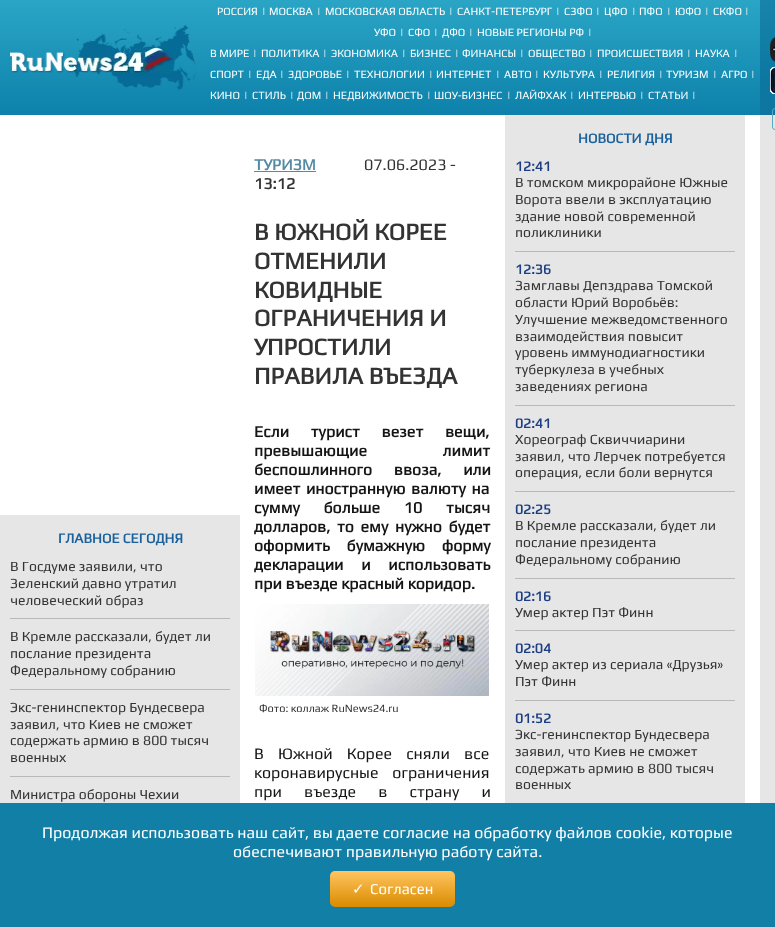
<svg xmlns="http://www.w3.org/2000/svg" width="775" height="927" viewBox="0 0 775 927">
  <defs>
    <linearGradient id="g1" gradientUnits="userSpaceOnUse" x1="500" y1="0" x2="500" y2="115"><stop offset="0" stop-color="#2aa5c5"/><stop offset="0.31" stop-color="#229bbe"/><stop offset="0.72" stop-color="#158bb2"/><stop offset="1" stop-color="#0d81ab"/></linearGradient>
    <linearGradient id="g2" gradientUnits="userSpaceOnUse" x1="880" y1="0" x2="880" y2="115"><stop offset="0" stop-color="#1984aa"/><stop offset="0.35" stop-color="#117ea6"/><stop offset="0.68" stop-color="#0c78a2"/><stop offset="1" stop-color="#0e76a0"/></linearGradient>
    <linearGradient id="g3" gradientUnits="userSpaceOnUse" x1="393" y1="871" x2="393" y2="907"><stop offset="0" stop-color="#ffc55f"/><stop offset="1" stop-color="#da8b00"/></linearGradient>
  </defs>
  <rect width="100%" height="100%" fill="#ffffff"/>
  <rect x="0" y="0" width="760" height="115" fill="url(#g1)"/>
  <image x="10" y="25" width="186" height="66" href="img1.png"/>
  <text x="217" y="15" font-family="Play" font-size="11" fill="#ffffff">РОССИЯ</text>
  <text x="262" y="15" font-family="Play" font-size="11" fill="#ffffff">|</text>
  <text x="269" y="15" font-family="Play" font-size="11" fill="#ffffff">МОСКВА</text>
  <text x="317" y="15" font-family="Play" font-size="11" fill="#ffffff">|</text>
  <text x="325" y="15" font-family="Play" font-size="11" fill="#ffffff">МОСКОВСКАЯ ОБЛАСТЬ</text>
  <text x="449" y="15" font-family="Play" font-size="11" fill="#ffffff">|</text>
  <text x="457" y="15" font-family="Play" font-size="11" fill="#ffffff">САНКТ-ПЕТЕРБУРГ</text>
  <text x="556" y="15" font-family="Play" font-size="11" fill="#ffffff">|</text>
  <text x="564" y="15" font-family="Play" font-size="11" fill="#ffffff">СЗФО</text>
  <text x="596" y="15" font-family="Play" font-size="11" fill="#ffffff">|</text>
  <text x="604" y="15" font-family="Play" font-size="11" fill="#ffffff">ЦФО</text>
  <text x="632" y="15" font-family="Play" font-size="11" fill="#ffffff">|</text>
  <text x="639" y="15" font-family="Play" font-size="11" fill="#ffffff">ПФО</text>
  <text x="667" y="15" font-family="Play" font-size="11" fill="#ffffff">|</text>
  <text x="675" y="15" font-family="Play" font-size="11" fill="#ffffff">ЮФО</text>
  <text x="705" y="15" font-family="Play" font-size="11" fill="#ffffff">|</text>
  <text x="713" y="15" font-family="Play" font-size="11" fill="#ffffff">СКФО</text>
  <text x="745" y="15" font-family="Play" font-size="11" fill="#ffffff">|</text>
  <text x="374" y="36" font-family="Play" font-size="11" fill="#ffffff">УФО</text>
  <text x="400" y="36" font-family="Play" font-size="11" fill="#ffffff">|</text>
  <text x="408" y="36" font-family="Play" font-size="11" fill="#ffffff">СФО</text>
  <text x="434" y="36" font-family="Play" font-size="11" fill="#ffffff">|</text>
  <text x="442" y="36" font-family="Play" font-size="11" fill="#ffffff">ДФО</text>
  <text x="469" y="36" font-family="Play" font-size="11" fill="#ffffff">|</text>
  <text x="477" y="36" font-family="Play" font-size="11" fill="#ffffff">НОВЫЕ РЕГИОНЫ РФ</text>
  <text x="588" y="36" font-family="Play" font-size="11" fill="#ffffff">|</text>
  <text x="210" y="57" font-family="Play" font-size="11" fill="#ffffff">В МИРЕ</text>
  <text x="253" y="57" font-family="Play" font-size="11" fill="#ffffff">|</text>
  <text x="261" y="57" font-family="Play" font-size="11" fill="#ffffff">ПОЛИТИКА</text>
  <text x="323" y="57" font-family="Play" font-size="11" fill="#ffffff">|</text>
  <text x="331" y="57" font-family="Play" font-size="11" fill="#ffffff">ЭКОНОМИКА</text>
  <text x="402" y="57" font-family="Play" font-size="11" fill="#ffffff">|</text>
  <text x="410" y="57" font-family="Play" font-size="11" fill="#ffffff">БИЗНЕС</text>
  <text x="455" y="57" font-family="Play" font-size="11" fill="#ffffff">|</text>
  <text x="462" y="57" font-family="Play" font-size="11" fill="#ffffff">ФИНАНСЫ</text>
  <text x="520" y="57" font-family="Play" font-size="11" fill="#ffffff">|</text>
  <text x="528" y="57" font-family="Play" font-size="11" fill="#ffffff">ОБЩЕСТВО</text>
  <text x="589" y="57" font-family="Play" font-size="11" fill="#ffffff">|</text>
  <text x="597" y="57" font-family="Play" font-size="11" fill="#ffffff">ПРОИСШЕСТВИЯ</text>
  <text x="687" y="57" font-family="Play" font-size="11" fill="#ffffff">|</text>
  <text x="695" y="57" font-family="Play" font-size="11" fill="#ffffff">НАУКА</text>
  <text x="734" y="57" font-family="Play" font-size="11" fill="#ffffff">|</text>
  <text x="210" y="78" font-family="Play" font-size="11" fill="#ffffff">СПОРТ</text>
  <text x="248" y="78" font-family="Play" font-size="11" fill="#ffffff">|</text>
  <text x="256" y="78" font-family="Play" font-size="11" fill="#ffffff">ЕДА</text>
  <text x="280" y="78" font-family="Play" font-size="11" fill="#ffffff">|</text>
  <text x="288" y="78" font-family="Play" font-size="11" fill="#ffffff">ЗДОРОВЬЕ</text>
  <text x="346" y="78" font-family="Play" font-size="11" fill="#ffffff">|</text>
  <text x="354" y="78" font-family="Play" font-size="11" fill="#ffffff">ТЕХНОЛОГИИ</text>
  <text x="429" y="78" font-family="Play" font-size="11" fill="#ffffff">|</text>
  <text x="436" y="78" font-family="Play" font-size="11" fill="#ffffff">ИНТЕРНЕТ</text>
  <text x="496" y="78" font-family="Play" font-size="11" fill="#ffffff">|</text>
  <text x="504" y="78" font-family="Play" font-size="11" fill="#ffffff">АВТО</text>
  <text x="535" y="78" font-family="Play" font-size="11" fill="#ffffff">|</text>
  <text x="543" y="78" font-family="Play" font-size="11" fill="#ffffff">КУЛЬТУРА</text>
  <text x="599" y="78" font-family="Play" font-size="11" fill="#ffffff">|</text>
  <text x="607" y="78" font-family="Play" font-size="11" fill="#ffffff">РЕЛИГИЯ</text>
  <text x="659" y="78" font-family="Play" font-size="11" fill="#ffffff">|</text>
  <text x="666" y="78" font-family="Play" font-size="11" fill="#ffffff">ТУРИЗМ</text>
  <text x="713" y="78" font-family="Play" font-size="11" fill="#ffffff">|</text>
  <text x="721" y="78" font-family="Play" font-size="11" fill="#ffffff">АГРО</text>
  <text x="751" y="78" font-family="Play" font-size="11" fill="#ffffff">|</text>
  <text x="210" y="99" font-family="Play" font-size="11" fill="#ffffff">КИНО</text>
  <text x="244" y="99" font-family="Play" font-size="11" fill="#ffffff">|</text>
  <text x="252" y="99" font-family="Play" font-size="11" fill="#ffffff">СТИЛЬ</text>
  <text x="290" y="99" font-family="Play" font-size="11" fill="#ffffff">|</text>
  <text x="297" y="99" font-family="Play" font-size="11" fill="#ffffff">ДОМ</text>
  <text x="325" y="99" font-family="Play" font-size="11" fill="#ffffff">|</text>
  <text x="333" y="99" font-family="Play" font-size="11" fill="#ffffff">НЕДВИЖИМОСТЬ</text>
  <text x="427" y="99" font-family="Play" font-size="11" fill="#ffffff">|</text>
  <text x="434" y="99" font-family="Play" font-size="11" fill="#ffffff">ШОУ-БИЗНЕС</text>
  <text x="507" y="99" font-family="Play" font-size="11" fill="#ffffff">|</text>
  <text x="515" y="99" font-family="Play" font-size="11" fill="#ffffff">ЛАЙФХАК</text>
  <text x="570" y="99" font-family="Play" font-size="11" fill="#ffffff">|</text>
  <text x="578" y="99" font-family="Play" font-size="11" fill="#ffffff">ИНТЕРВЬЮ</text>
  <text x="640" y="99" font-family="Play" font-size="11" fill="#ffffff">|</text>
  <text x="648" y="99" font-family="Play" font-size="11" fill="#ffffff">СТАТЬИ</text>
  <text x="692" y="99" font-family="Play" font-size="11" fill="#ffffff">|</text>
  <rect x="760" y="0" width="15" height="115" fill="url(#g2)"/>
  <image x="770" y="37" width="5" height="25" href="img2.png"/>
  <image x="770" y="67" width="5" height="27" href="img3.png"/>
  <rect x="760" y="115" width="15" height="688" fill="#e6e6e6"/>
  <rect x="772.5" y="108.5" width="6" height="21" rx="2.5" fill="none" stroke="#57acc3"/>
  <rect x="0" y="515" width="240" height="288" fill="#e6e6e6"/>
  <text x="58" y="543" font-family="Play" font-size="14" font-weight="bold" fill="#19609c">ГЛАВНОЕ СЕГОДНЯ</text>
  <text x="10" y="571" font-family="Play" font-size="14" fill="#333333">В Госдуме заявили, что</text>
  <text x="10" y="588" font-family="Play" font-size="14" fill="#333333">Зеленский давно утратил</text>
  <text x="10" y="605" font-family="Play" font-size="14" fill="#333333">человеческий образ</text>
  <rect x="10" y="618" width="220" height="1" fill="#b9b9b9"/>
  <text x="10" y="641" font-family="Play" font-size="14" fill="#333333">В Кремле рассказали, будет ли</text>
  <text x="10" y="658" font-family="Play" font-size="14" fill="#333333">послание президента</text>
  <text x="10" y="675" font-family="Play" font-size="14" fill="#333333">Федеральному собранию</text>
  <rect x="10" y="689" width="220" height="1" fill="#b9b9b9"/>
  <text x="10" y="712" font-family="Play" font-size="14" fill="#333333">Экс-генинспектор Бундесвера</text>
  <text x="10" y="729" font-family="Play" font-size="14" fill="#333333">заявил, что Киев не сможет</text>
  <text x="10" y="745" font-family="Play" font-size="14" fill="#333333">содержать армию в 800 тысяч</text>
  <text x="10" y="762" font-family="Play" font-size="14" fill="#333333">военных</text>
  <rect x="10" y="776" width="220" height="1" fill="#b9b9b9"/>
  <text x="10" y="799" font-family="Play" font-size="14" fill="#333333">Министра обороны Чехии</text>
  <text x="254" y="170" font-family="Play" font-size="16" font-weight="bold" fill="#548aa3">ТУРИЗМ</text>
  <rect x="254" y="171" width="62" height="1" fill="#548aa3"/>
  <text x="364" y="170" font-family="Play" font-size="16" fill="#333333">07.06.2023 -</text>
  <text x="254" y="189" font-family="Play" font-size="16" font-weight="bold" fill="#333333">13:12</text>
  <text x="254" y="240" font-family="Play" font-size="24" font-weight="bold" fill="#333333">В ЮЖНОЙ КОРЕЕ</text>
  <text x="254" y="269" font-family="Play" font-size="24" font-weight="bold" fill="#333333">ОТМЕНИЛИ</text>
  <text x="254" y="298" font-family="Play" font-size="24" font-weight="bold" fill="#333333">КОВИДНЫЕ</text>
  <text x="254" y="326" font-family="Play" font-size="24" font-weight="bold" fill="#333333">ОГРАНИЧЕНИЯ И</text>
  <text x="254" y="355" font-family="Play" font-size="24" font-weight="bold" fill="#333333">УПРОСТИЛИ</text>
  <text x="254" y="384" font-family="Play" font-size="24" font-weight="bold" fill="#333333">ПРАВИЛА ВЪЕЗДА</text>
  <text x="254" y="437" word-spacing="18" font-family="Play" font-size="16" font-weight="bold" fill="#151515">Если турист везет вещи,</text>
  <text x="254" y="456" word-spacing="72" font-family="Play" font-size="16" font-weight="bold" fill="#151515">превышающие лимит</text>
  <text x="254" y="475" word-spacing="18" font-family="Play" font-size="16" font-weight="bold" fill="#151515">беспошлинного ввоза, или</text>
  <text x="254" y="494" word-spacing="2" font-family="Play" font-size="16" font-weight="bold" fill="#151515">имеет иностранную валюту на</text>
  <text x="254" y="513" word-spacing="20" font-family="Play" font-size="16" font-weight="bold" fill="#151515">сумму больше 10 тысяч</text>
  <text x="254" y="532" word-spacing="3" font-family="Play" font-size="16" font-weight="bold" fill="#151515">долларов, то ему нужно будет</text>
  <text x="254" y="551" word-spacing="13" font-family="Play" font-size="16" font-weight="bold" fill="#151515">оформить бумажную форму</text>
  <text x="254" y="570" word-spacing="14" font-family="Play" font-size="16" font-weight="bold" fill="#151515">декларации и использовать</text>
  <text x="254" y="589" font-family="Play" font-size="16" font-weight="bold" fill="#151515">при въезде красный коридор.</text>
  <image x="255" y="604" width="234" height="92" href="img4.png"/>
  <text x="259" y="712" font-family="Play" font-size="11" fill="#333333">Фото: коллаж RuNews24.ru</text>
  <text x="254" y="759" word-spacing="10.5" font-family="Play" font-size="16" fill="#151515">В Южной Корее сняли все</text>
  <text x="254" y="778" word-spacing="10" font-family="Play" font-size="16" fill="#151515">коронавирусные ограничения</text>
  <text x="254" y="797" word-spacing="18.5" font-family="Play" font-size="16" fill="#151515">при въезде в страну и</text>
  <rect x="505" y="115" width="240" height="688" fill="#e6e6e6"/>
  <text x="578" y="143" font-family="Play" font-size="14" font-weight="bold" fill="#19609c">НОВОСТИ ДНЯ</text>
  <text x="515" y="171" font-family="Play" font-size="14" font-weight="bold" fill="#1c3e84">12:41</text>
  <text x="515" y="187" font-family="Play" font-size="14" fill="#333333">В томском микрорайоне Южные</text>
  <text x="515" y="204" font-family="Play" font-size="14" fill="#333333">Ворота ввели в эксплуатацию</text>
  <text x="515" y="221" font-family="Play" font-size="14" fill="#333333">здание новой современной</text>
  <text x="515" y="237" font-family="Play" font-size="14" fill="#333333">поликлиники</text>
  <rect x="515" y="251" width="220" height="1" fill="#b9b9b9"/>
  <text x="515" y="274" font-family="Play" font-size="14" font-weight="bold" fill="#1c3e84">12:36</text>
  <text x="515" y="290" font-family="Play" font-size="14" fill="#333333">Замглавы Депздрава Томской</text>
  <text x="515" y="307" font-family="Play" font-size="14" fill="#333333">области Юрий Воробьёв:</text>
  <text x="515" y="324" font-family="Play" font-size="14" fill="#333333">Улучшение межведомственного</text>
  <text x="515" y="341" font-family="Play" font-size="14" fill="#333333">взаимодействия повысит</text>
  <text x="515" y="357" font-family="Play" font-size="14" fill="#333333">уровень иммунодиагностики</text>
  <text x="515" y="374" font-family="Play" font-size="14" fill="#333333">туберкулеза в учебных</text>
  <text x="515" y="391" font-family="Play" font-size="14" fill="#333333">заведениях региона</text>
  <rect x="515" y="405" width="220" height="1" fill="#b9b9b9"/>
  <text x="515" y="428" font-family="Play" font-size="14" font-weight="bold" fill="#1c3e84">02:41</text>
  <text x="515" y="444" font-family="Play" font-size="14" fill="#333333">Хореограф Сквиччиарини</text>
  <text x="515" y="461" font-family="Play" font-size="14" fill="#333333">заявил, что Лерчек потребуется</text>
  <text x="515" y="477" font-family="Play" font-size="14" fill="#333333">операция, если боли вернутся</text>
  <rect x="515" y="491" width="220" height="1" fill="#b9b9b9"/>
  <text x="515" y="514" font-family="Play" font-size="14" font-weight="bold" fill="#1c3e84">02:25</text>
  <text x="515" y="530" font-family="Play" font-size="14" fill="#333333">В Кремле рассказали, будет ли</text>
  <text x="515" y="547" font-family="Play" font-size="14" fill="#333333">послание президента</text>
  <text x="515" y="564" font-family="Play" font-size="14" fill="#333333">Федеральному собранию</text>
  <rect x="515" y="578" width="220" height="1" fill="#b9b9b9"/>
  <text x="515" y="601" font-family="Play" font-size="14" font-weight="bold" fill="#1c3e84">02:16</text>
  <text x="515" y="617" font-family="Play" font-size="14" fill="#333333">Умер актер Пэт Финн</text>
  <rect x="515" y="630" width="220" height="1" fill="#b9b9b9"/>
  <text x="515" y="653" font-family="Play" font-size="14" font-weight="bold" fill="#1c3e84">02:04</text>
  <text x="515" y="669" font-family="Play" font-size="14" fill="#333333">Умер актер из сериала «Друзья»</text>
  <text x="515" y="686" font-family="Play" font-size="14" fill="#333333">Пэт Финн</text>
  <rect x="515" y="700" width="220" height="1" fill="#b9b9b9"/>
  <text x="515" y="723" font-family="Play" font-size="14" font-weight="bold" fill="#1c3e84">01:52</text>
  <text x="515" y="739" font-family="Play" font-size="14" fill="#333333">Экс-генинспектор Бундесвера</text>
  <text x="515" y="756" font-family="Play" font-size="14" fill="#333333">заявил, что Киев не сможет</text>
  <text x="515" y="773" font-family="Play" font-size="14" fill="#333333">содержать армию в 800 тысяч</text>
  <text x="515" y="789" font-family="Play" font-size="14" fill="#333333">военных</text>
  <rect x="0" y="803" width="775" height="124" fill="#127fa7"/>
  <text x="42" y="838" font-family="Play" font-size="16" fill="#ffffff">Продолжая использовать наш сайт, вы даете согласие на обработку файлов cookie, которые</text>
  <text x="233" y="857" font-family="Play" font-size="16" fill="#ffffff">обеспечивают правильную работу сайта.</text>
  <rect x="330" y="871" width="125" height="36" rx="5" fill="url(#g3)"/>
  <text x="352" y="894" font-family="DejaVu Sans" font-size="15" fill="#ffffff">✓</text>
  <text x="370" y="894" font-family="Play" font-size="15" fill="#ffffff">Согласен</text>
</svg>
